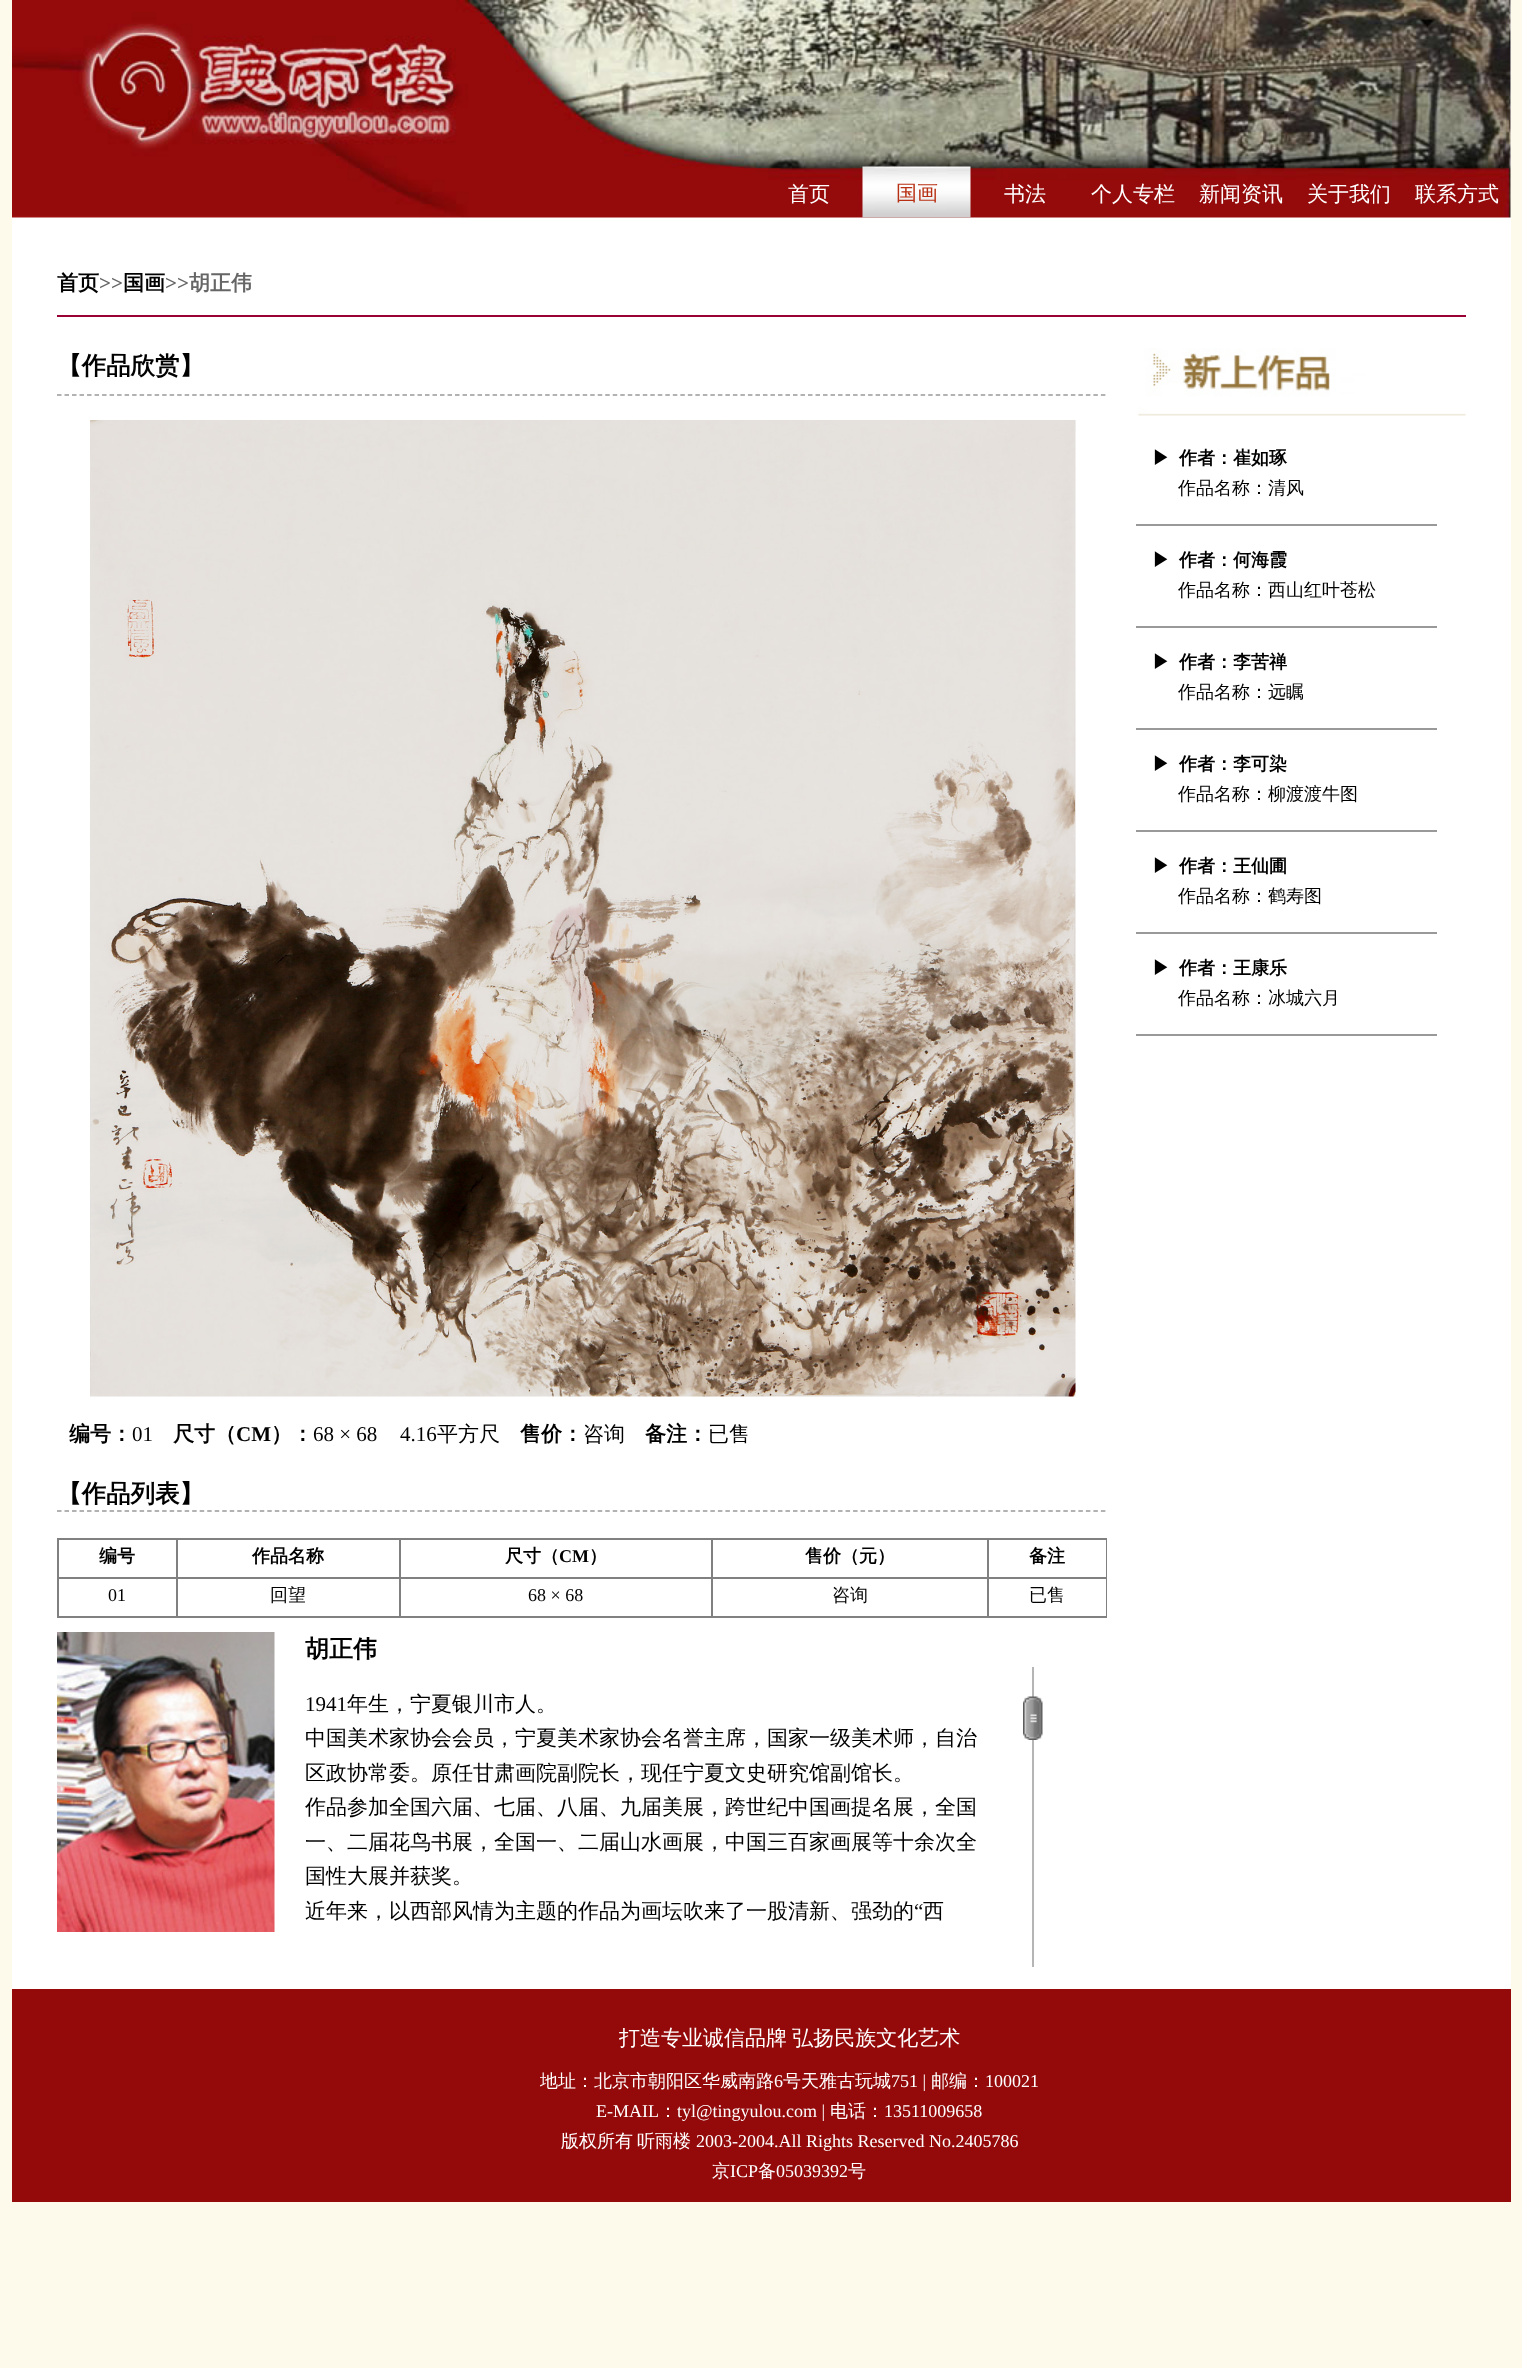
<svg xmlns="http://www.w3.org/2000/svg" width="1522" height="2368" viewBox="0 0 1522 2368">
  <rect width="100%" height="100%" fill="#fdfaeb"/>
  <rect x="12" y="0" width="1499" height="1989" fill="#ffffff"/>
  <image x="12" y="0" width="1499" height="218" href="img1.png"/>
  <text x="788" y="201" font-family="WenQuanYi Zen Hei" font-size="21" font-weight="500" fill="#ffffff">首页</text>
  <image x="862" y="166" width="109" height="52" href="img2.png"/>
  <text x="896" y="200" font-family="WenQuanYi Zen Hei" font-size="21" font-weight="500" fill="#b83013">国画</text>
  <text x="1004" y="201" font-family="WenQuanYi Zen Hei" font-size="21" font-weight="500" fill="#ffffff">书法</text>
  <text x="1091" y="201" font-family="WenQuanYi Zen Hei" font-size="21" font-weight="500" fill="#ffffff">个人专栏</text>
  <text x="1199" y="201" font-family="WenQuanYi Zen Hei" font-size="21" font-weight="500" fill="#ffffff">新闻资讯</text>
  <text x="1307" y="201" font-family="WenQuanYi Zen Hei" font-size="21" font-weight="500" fill="#ffffff">关于我们</text>
  <text x="1415" y="201" font-family="WenQuanYi Zen Hei" font-size="21" font-weight="500" fill="#ffffff">联系方式</text>
  <rect x="57" y="315" width="1409" height="2" fill="#990033"/>
  <text x="57" y="290" font-family="WenQuanYi Zen Hei" font-size="21" font-weight="bold" fill="#000000">首页</text>
  <text x="99" y="290" font-family="Liberation Serif" font-size="21" font-weight="bold" fill="#666666">&gt;&gt;</text>
  <text x="123" y="290" font-family="WenQuanYi Zen Hei" font-size="21" font-weight="bold" fill="#000000">国画</text>
  <text x="165" y="290" font-family="Liberation Serif" font-size="21" font-weight="bold" fill="#666666">&gt;&gt;</text>
  <text x="189" y="290" font-family="WenQuanYi Zen Hei" font-size="21" font-weight="bold" fill="#666666">胡正伟</text>
  <path d="M57 395H1107" fill="none" stroke="#999999" stroke-width="1.5" stroke-dasharray="4.5 3.01"/>
  <text x="57" y="374" font-family="WenQuanYi Zen Hei" font-size="24.5" font-weight="bold" fill="#000000">【作品欣赏】</text>
  <image x="90" y="420" width="986" height="977" href="img3.png"/>
  <text x="69" y="1441" font-family="WenQuanYi Zen Hei" font-size="21" font-weight="bold" fill="#000000">编号：</text>
  <text x="132" y="1441" font-family="Liberation Serif" font-size="21" fill="#000000">01</text>
  <text x="173" y="1441" font-family="WenQuanYi Zen Hei" font-size="21" font-weight="bold" fill="#000000">尺寸（</text>
  <text x="236" y="1441" font-family="Liberation Serif" font-size="21" font-weight="bold" fill="#000000">CM</text>
  <text x="271" y="1441" font-family="WenQuanYi Zen Hei" font-size="21" font-weight="bold" fill="#000000">）：</text>
  <text x="313" y="1441" font-family="Liberation Serif" font-size="21" fill="#000000">68 × 68</text>
  <text x="400" y="1441" font-family="Liberation Serif" font-size="21" fill="#000000">4.16</text>
  <text x="437" y="1441" font-family="WenQuanYi Zen Hei" font-size="21" font-weight="500" fill="#000000">平方尺</text>
  <text x="520" y="1441" font-family="WenQuanYi Zen Hei" font-size="21" font-weight="bold" fill="#000000">售价：</text>
  <text x="583" y="1441" font-family="WenQuanYi Zen Hei" font-size="21" font-weight="500" fill="#000000">咨询</text>
  <text x="645" y="1441" font-family="WenQuanYi Zen Hei" font-size="21" font-weight="bold" fill="#000000">备注：</text>
  <text x="708" y="1441" font-family="WenQuanYi Zen Hei" font-size="21" font-weight="500" fill="#000000">已售</text>
  <path d="M57 1511H1107" fill="none" stroke="#999999" stroke-width="1.5" stroke-dasharray="4.5 3.01"/>
  <text x="57" y="1502" font-family="WenQuanYi Zen Hei" font-size="24.5" font-weight="bold" fill="#000000">【作品列表】</text>
  <rect x="57" y="1538" width="1050" height="2" fill="#808080"/>
  <rect x="1106" y="1538" width="1" height="79" fill="#808080"/>
  <rect x="57" y="1616" width="1050" height="2" fill="#808080"/>
  <rect x="57" y="1538" width="2" height="79" fill="#808080"/>
  <text x="99" y="1562" font-family="WenQuanYi Zen Hei" font-size="18" font-weight="bold" fill="#000000">编号</text>
  <rect x="987" y="1577" width="120" height="2" fill="#808080"/>
  <rect x="987" y="1577" width="2" height="40" fill="#808080"/>
  <rect x="711" y="1577" width="278" height="2" fill="#808080"/>
  <rect x="711" y="1577" width="2" height="40" fill="#808080"/>
  <rect x="399" y="1577" width="314" height="2" fill="#808080"/>
  <rect x="399" y="1577" width="2" height="40" fill="#808080"/>
  <rect x="176" y="1577" width="225" height="2" fill="#808080"/>
  <rect x="176" y="1577" width="2" height="40" fill="#808080"/>
  <rect x="57" y="1577" width="120" height="2" fill="#808080"/>
  <rect x="176" y="1538" width="2" height="40" fill="#808080"/>
  <text x="252" y="1562" font-family="WenQuanYi Zen Hei" font-size="18" font-weight="bold" fill="#000000">作品名称</text>
  <rect x="399" y="1538" width="2" height="40" fill="#808080"/>
  <text x="505" y="1562" font-family="WenQuanYi Zen Hei" font-size="18" font-weight="bold" fill="#000000">尺寸（</text>
  <text x="559" y="1562" font-family="Liberation Serif" font-size="18" font-weight="bold" fill="#000000">CM</text>
  <text x="589" y="1562" font-family="WenQuanYi Zen Hei" font-size="18" font-weight="bold" fill="#000000">）</text>
  <rect x="711" y="1538" width="2" height="40" fill="#808080"/>
  <text x="805" y="1562" font-family="WenQuanYi Zen Hei" font-size="18" font-weight="bold" fill="#000000">售价（元）</text>
  <rect x="987" y="1538" width="2" height="40" fill="#808080"/>
  <text x="1029" y="1562" font-family="WenQuanYi Zen Hei" font-size="18" font-weight="bold" fill="#000000">备注</text>
  <text x="108" y="1601" font-family="Liberation Serif" font-size="18" fill="#000000">01</text>
  <text x="270" y="1601" font-family="WenQuanYi Zen Hei" font-size="18" font-weight="500" fill="#000000">回望</text>
  <text x="528" y="1601" font-family="Liberation Serif" font-size="18" fill="#000000">68 × 68</text>
  <text x="832" y="1601" font-family="WenQuanYi Zen Hei" font-size="18" font-weight="500" fill="#000000">咨询</text>
  <text x="1029" y="1601" font-family="WenQuanYi Zen Hei" font-size="18" font-weight="500" fill="#000000">已售</text>
  <image x="57" y="1632" width="218" height="300" href="img4.png"/>
  <text x="305" y="1657" font-family="WenQuanYi Zen Hei" font-size="24" font-weight="bold" fill="#000000">胡正伟</text>
  <text x="305" y="1711" font-family="Liberation Serif" font-size="21" fill="#000000">1941</text>
  <text x="347" y="1711" font-family="WenQuanYi Zen Hei" font-size="21" font-weight="500" fill="#000000">年生，宁夏银川市人。</text>
  <text x="305" y="1745" font-family="WenQuanYi Zen Hei" font-size="21" font-weight="500" fill="#000000">中国美术家协会会员，宁夏美术家协会名誉主席，国家一级美术师，自治</text>
  <text x="305" y="1780" font-family="WenQuanYi Zen Hei" font-size="21" font-weight="500" fill="#000000">区政协常委。原任甘肃画院副院长，现任宁夏文史研究馆副馆长。</text>
  <text x="305" y="1814" font-family="WenQuanYi Zen Hei" font-size="21" font-weight="500" fill="#000000">作品参加全国六届、七届、八届、九届美展，跨世纪中国画提名展，全国</text>
  <text x="305" y="1849" font-family="WenQuanYi Zen Hei" font-size="21" font-weight="500" fill="#000000">一、二届花鸟书展，全国一、二届山水画展，中国三百家画展等十余次全</text>
  <text x="305" y="1883" font-family="WenQuanYi Zen Hei" font-size="21" font-weight="500" fill="#000000">国性大展并获奖。</text>
  <text x="305" y="1918" font-family="WenQuanYi Zen Hei" font-size="21" font-weight="500" fill="#000000">近年来，以西部风情为主题的作品为画坛吹来了一股清新、强劲的</text>
  <text x="914" y="1918" font-family="Liberation Serif" font-size="21" fill="#000000">“</text>
  <text x="923" y="1918" font-family="WenQuanYi Zen Hei" font-size="21" font-weight="500" fill="#000000">西</text>
  <rect x="1032" y="1667" width="2" height="300" fill="#b5b5b5"/>
  <image x="1023" y="1696" width="20" height="44" href="img5.png"/>
  <image x="1137" y="348" width="329" height="68" href="img6.png"/>
  <rect x="1136" y="524" width="301" height="2" fill="#999999"/>
  <text x="1152" y="464" font-family="WenQuanYi Zen Hei" font-size="18" font-weight="bold" fill="#000000">▶</text>
  <text x="1179" y="464" font-family="WenQuanYi Zen Hei" font-size="18" font-weight="bold" fill="#000000">作者：崔如琢</text>
  <text x="1178" y="494" font-family="WenQuanYi Zen Hei" font-size="18" font-weight="500" fill="#000000">作品名称：清风</text>
  <rect x="1136" y="626" width="301" height="2" fill="#999999"/>
  <text x="1152" y="566" font-family="WenQuanYi Zen Hei" font-size="18" font-weight="bold" fill="#000000">▶</text>
  <text x="1179" y="566" font-family="WenQuanYi Zen Hei" font-size="18" font-weight="bold" fill="#000000">作者：何海霞</text>
  <text x="1178" y="596" font-family="WenQuanYi Zen Hei" font-size="18" font-weight="500" fill="#000000">作品名称：西山红叶苍松</text>
  <rect x="1136" y="728" width="301" height="2" fill="#999999"/>
  <text x="1152" y="668" font-family="WenQuanYi Zen Hei" font-size="18" font-weight="bold" fill="#000000">▶</text>
  <text x="1179" y="668" font-family="WenQuanYi Zen Hei" font-size="18" font-weight="bold" fill="#000000">作者：李苦禅</text>
  <text x="1178" y="698" font-family="WenQuanYi Zen Hei" font-size="18" font-weight="500" fill="#000000">作品名称：远瞩</text>
  <rect x="1136" y="830" width="301" height="2" fill="#999999"/>
  <text x="1152" y="770" font-family="WenQuanYi Zen Hei" font-size="18" font-weight="bold" fill="#000000">▶</text>
  <text x="1179" y="770" font-family="WenQuanYi Zen Hei" font-size="18" font-weight="bold" fill="#000000">作者：李可染</text>
  <text x="1178" y="800" font-family="WenQuanYi Zen Hei" font-size="18" font-weight="500" fill="#000000">作品名称：柳渡渡牛图</text>
  <rect x="1136" y="932" width="301" height="2" fill="#999999"/>
  <text x="1152" y="872" font-family="WenQuanYi Zen Hei" font-size="18" font-weight="bold" fill="#000000">▶</text>
  <text x="1179" y="872" font-family="WenQuanYi Zen Hei" font-size="18" font-weight="bold" fill="#000000">作者：王仙圃</text>
  <text x="1178" y="902" font-family="WenQuanYi Zen Hei" font-size="18" font-weight="500" fill="#000000">作品名称：鹤寿图</text>
  <rect x="1136" y="1034" width="301" height="2" fill="#999999"/>
  <text x="1152" y="974" font-family="WenQuanYi Zen Hei" font-size="18" font-weight="bold" fill="#000000">▶</text>
  <text x="1179" y="974" font-family="WenQuanYi Zen Hei" font-size="18" font-weight="bold" fill="#000000">作者：王康乐</text>
  <text x="1178" y="1004" font-family="WenQuanYi Zen Hei" font-size="18" font-weight="500" fill="#000000">作品名称：冰城六月</text>
  <rect x="12" y="1989" width="1499" height="213" fill="#940909"/>
  <text x="619" y="2045" word-spacing="-1" font-family="WenQuanYi Zen Hei" font-size="21" font-weight="500" fill="#ffffff">打造专业诚信品牌 弘扬民族文化艺术</text>
  <text x="540" y="2087" font-family="WenQuanYi Zen Hei" font-size="18" font-weight="500" fill="#ffffff">地址：北京市朝阳区华威南路</text>
  <text x="774" y="2087" font-family="Liberation Serif" font-size="18" fill="#ffffff">6</text>
  <text x="783" y="2087" font-family="WenQuanYi Zen Hei" font-size="18" font-weight="500" fill="#ffffff">号天雅古玩城</text>
  <text x="891" y="2087" font-family="Liberation Serif" font-size="18" fill="#ffffff">751 |</text>
  <text x="931" y="2087" font-family="WenQuanYi Zen Hei" font-size="18" font-weight="500" fill="#ffffff">邮编：</text>
  <text x="985" y="2087" font-family="Liberation Serif" font-size="18" fill="#ffffff">100021</text>
  <text x="596" y="2117" font-family="Liberation Serif" font-size="18" fill="#ffffff">E-MAIL</text>
  <text x="659" y="2117" font-family="WenQuanYi Zen Hei" font-size="18" font-weight="500" fill="#ffffff">：</text>
  <text x="677" y="2117" font-family="Liberation Serif" font-size="18" fill="#ffffff">tyl@tingyulou.com |</text>
  <text x="830" y="2117" font-family="WenQuanYi Zen Hei" font-size="18" font-weight="500" fill="#ffffff">电话：</text>
  <text x="884" y="2117" font-family="Liberation Serif" font-size="18" fill="#ffffff">13511009658</text>
  <text x="561" y="2147" font-family="WenQuanYi Zen Hei" font-size="18" font-weight="500" fill="#ffffff">版权所有</text>
  <text x="637" y="2147" font-family="WenQuanYi Zen Hei" font-size="18" font-weight="500" fill="#ffffff">听雨楼</text>
  <text x="696" y="2147" font-family="Liberation Serif" font-size="18" fill="#ffffff">2003-2004.All Rights Reserved No.2405786</text>
  <text x="712" y="2177" font-family="WenQuanYi Zen Hei" font-size="18" font-weight="500" fill="#ffffff">京</text>
  <text x="730" y="2177" font-family="Liberation Serif" font-size="18" fill="#ffffff">ICP</text>
  <text x="758" y="2177" font-family="WenQuanYi Zen Hei" font-size="18" font-weight="500" fill="#ffffff">备</text>
  <text x="776" y="2177" font-family="Liberation Serif" font-size="18" fill="#ffffff">05039392</text>
  <text x="848" y="2177" font-family="WenQuanYi Zen Hei" font-size="18" font-weight="500" fill="#ffffff">号</text>
</svg>
